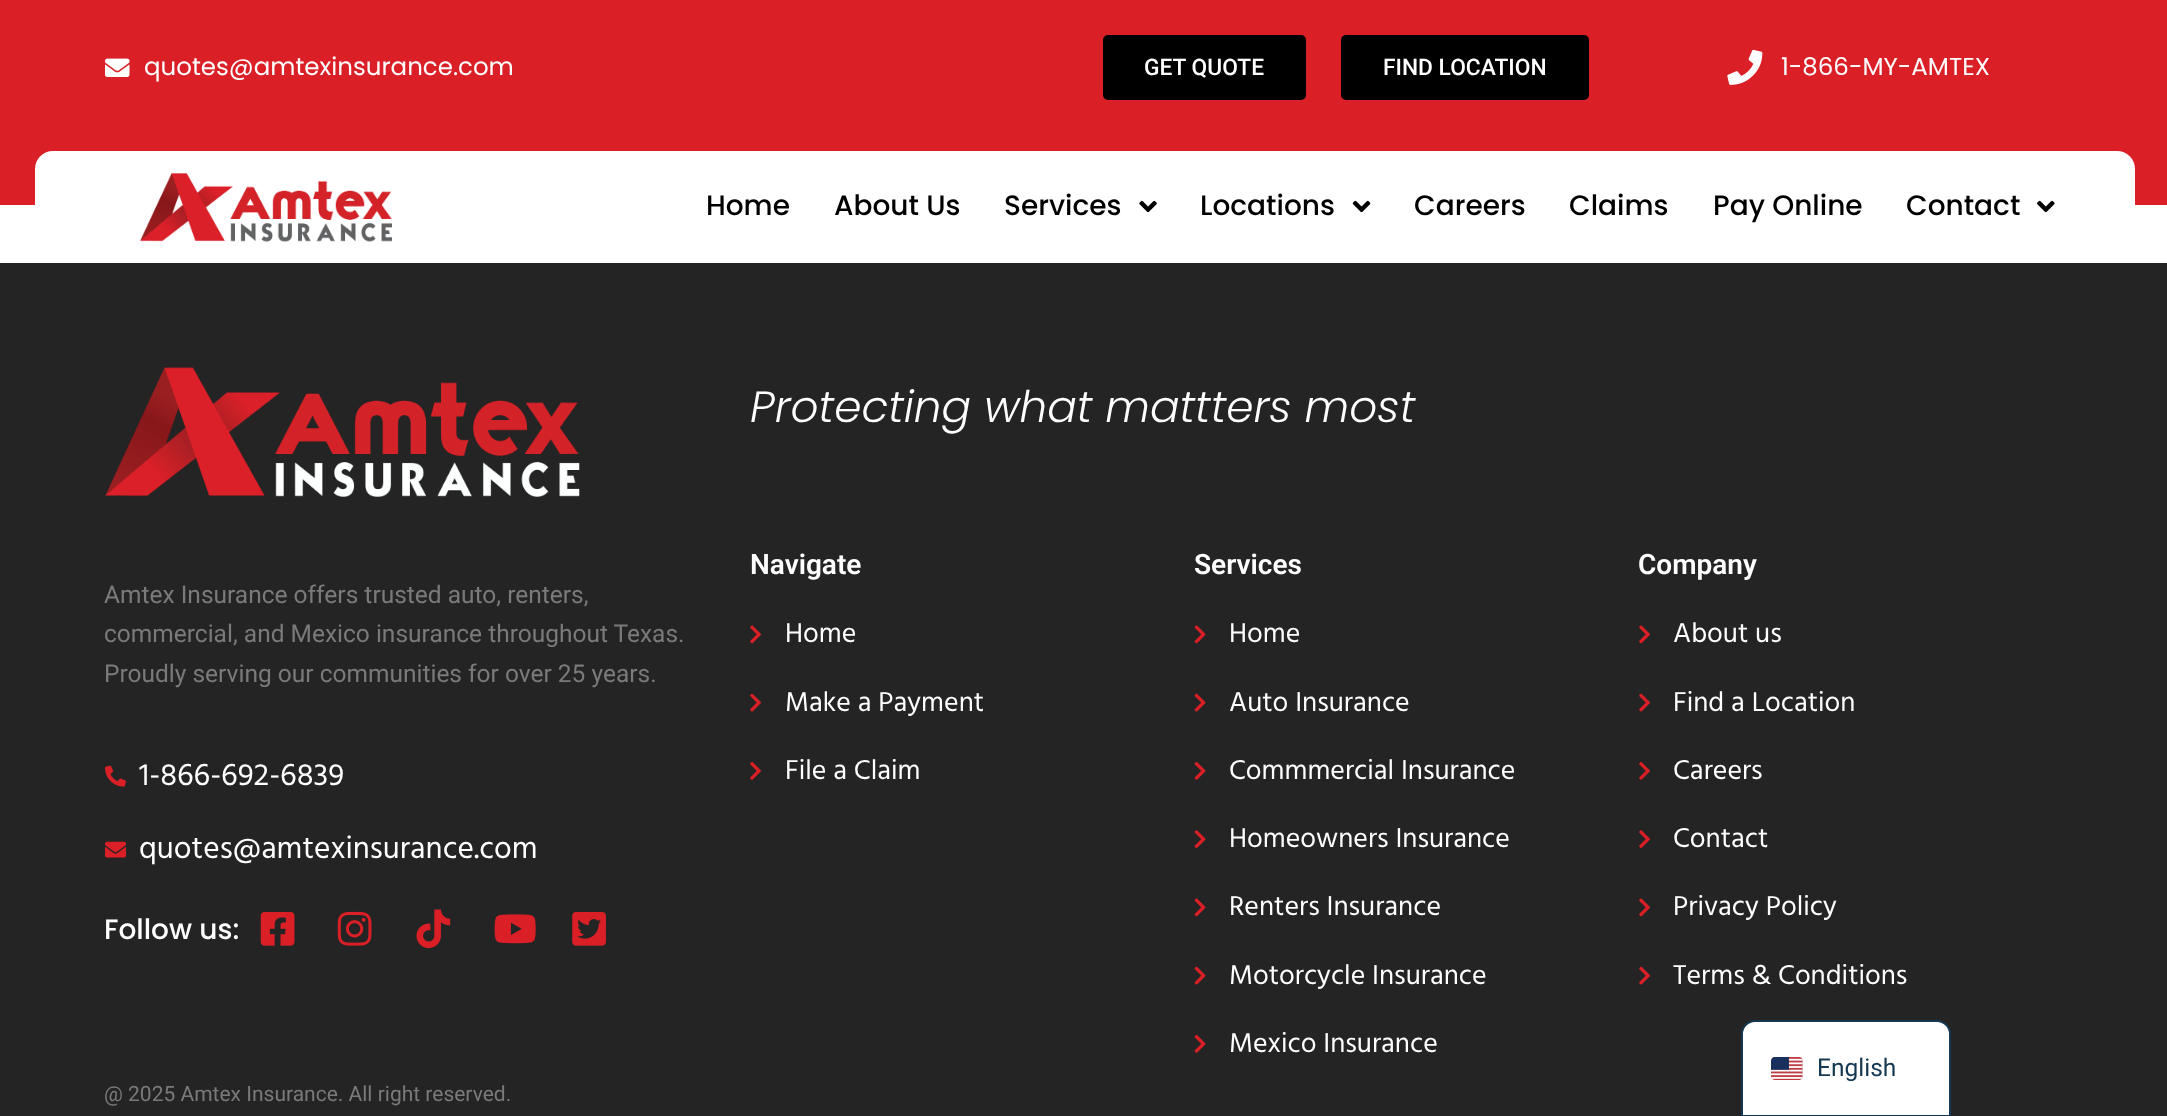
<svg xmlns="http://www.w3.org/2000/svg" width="2167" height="1116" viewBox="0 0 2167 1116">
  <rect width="100%" height="100%" fill="#ffffff"/>
  <rect x="0" y="0" width="2167" height="205" fill="#da1f26"/>
  <image x="105" y="58" width="25" height="19" href="img1.png"/>
  <text x="144" y="75" font-family="Poppins" font-size="24.5" fill="#ffffff">quotes@amtexinsurance.com</text>
  <rect x="1103" y="35" width="203" height="65" rx="5" fill="#000000"/>
  <text x="1144" y="75" font-family="Roboto" font-size="22.75" font-weight="500" fill="#ffffff">GET QUOTE</text>
  <rect x="1341" y="35" width="248" height="65" rx="5" fill="#000000"/>
  <text x="1383" y="75" font-family="Roboto" font-size="22.75" font-weight="500" fill="#ffffff">FIND LOCATION</text>
  <image x="1727" y="49" width="36" height="36" href="img2.png"/>
  <text x="1781" y="75" font-family="Poppins" font-size="24.5" fill="#ffffff">1-866-MY-AMTEX</text>
  <rect x="35" y="151" width="2100" height="112" rx="18" fill="#ffffff"/>
  <image x="140" y="173" width="252" height="69" href="img3.png"/>
  <text x="706" y="215" font-family="Poppins" font-size="28" font-weight="500" fill="#000000">Home</text>
  <text x="834" y="215" font-family="Poppins" font-size="28" font-weight="500" fill="#000000">About Us</text>
  <text x="1004" y="215" font-family="Poppins" font-size="28" font-weight="500" fill="#000000">Services</text>
  <image x="1139" y="200" width="18" height="13" href="img4.png"/>
  <text x="1200" y="215" font-family="Poppins" font-size="28" font-weight="500" fill="#000000">Locations</text>
  <image x="1352" y="200" width="19" height="13" href="img5.png"/>
  <text x="1414" y="215" font-family="Poppins" font-size="28" font-weight="500" fill="#000000">Careers</text>
  <text x="1569" y="215" font-family="Poppins" font-size="28" font-weight="500" fill="#000000">Claims</text>
  <text x="1713" y="215" font-family="Poppins" font-size="28" font-weight="500" fill="#000000">Pay Online</text>
  <text x="1906" y="215" font-family="Poppins" font-size="28" font-weight="500" fill="#000000">Contact</text>
  <image x="2037" y="200" width="18" height="13" href="img6.png"/>
  <rect x="0" y="263" width="2167" height="853" fill="#242424"/>
  <image x="105" y="367" width="475" height="130" href="img7.png"/>
  <text x="104" y="603" font-family="Roboto" font-size="24.5" fill="#7a7a7a">Amtex Insurance offers trusted auto, renters,</text>
  <text x="104" y="642" font-family="Roboto" font-size="24.5" fill="#7a7a7a">commercial, and Mexico insurance throughout Texas.</text>
  <text x="104" y="682" font-family="Roboto" font-size="24.5" fill="#7a7a7a">Proudly serving our communities for over 25 years.</text>
  <image x="105" y="765" width="21" height="22" href="img8.png"/>
  <text x="139" y="785" font-family="Hind" font-size="31.5" fill="#ffffff">1-866-692-6839</text>
  <image x="105" y="841" width="21" height="17" href="img9.png"/>
  <text x="139" y="858" font-family="Hind" font-size="31.5" fill="#ffffff">quotes@amtexinsurance.com</text>
  <text x="104" y="939" font-family="Poppins" font-size="28" font-weight="500" fill="#ffffff">Follow us:</text>
  <image x="260" y="912" width="35" height="34" href="img10.png"/>
  <image x="337" y="911" width="35" height="35" href="img11.png"/>
  <image x="416" y="909" width="35" height="40" href="img12.png"/>
  <image x="494" y="914" width="42" height="30" href="img13.png"/>
  <image x="572" y="912" width="34" height="34" href="img14.png"/>
  <text x="104" y="1101" font-family="Roboto" font-size="21" fill="#7a7a7a">@ 2025 Amtex Insurance. All right reserved.</text>
  <text x="750" y="422" font-family="Poppins" font-size="43.75" font-weight="300" font-style="italic" fill="#ffffff">Protecting what mattters most</text>
  <text x="750" y="574" font-family="Roboto" font-size="28" font-weight="600" fill="#ffffff">Navigate</text>
  <image x="750" y="625" width="11" height="19" href="img15.png"/>
  <text x="785" y="642" font-family="Hind" font-size="28" fill="#ffffff">Home</text>
  <image x="750" y="693" width="11" height="19" href="img16.png"/>
  <text x="785" y="711" font-family="Hind" font-size="28" fill="#ffffff">Make a Payment</text>
  <image x="750" y="762" width="11" height="18" href="img17.png"/>
  <text x="785" y="779" font-family="Hind" font-size="28" fill="#ffffff">File a Claim</text>
  <text x="1194" y="574" font-family="Roboto" font-size="28" font-weight="600" fill="#ffffff">Services</text>
  <image x="1194" y="625" width="12" height="19" href="img18.png"/>
  <text x="1229" y="642" font-family="Hind" font-size="28" fill="#ffffff">Home</text>
  <image x="1194" y="693" width="12" height="19" href="img19.png"/>
  <text x="1229" y="711" font-family="Hind" font-size="28" fill="#ffffff">Auto Insurance</text>
  <image x="1194" y="761" width="12" height="19" href="img20.png"/>
  <text x="1229" y="779" font-family="Hind" font-size="28" fill="#ffffff">Commmercial Insurance</text>
  <image x="1194" y="830" width="12" height="19" href="img21.png"/>
  <text x="1229" y="847" font-family="Hind" font-size="28" fill="#ffffff">Homeowners Insurance</text>
  <image x="1194" y="898" width="12" height="19" href="img18.png"/>
  <text x="1229" y="915" font-family="Hind" font-size="28" fill="#ffffff">Renters Insurance</text>
  <image x="1194" y="966" width="12" height="19" href="img19.png"/>
  <text x="1229" y="984" font-family="Hind" font-size="28" fill="#ffffff">Motorcycle Insurance</text>
  <image x="1194" y="1034" width="12" height="19" href="img20.png"/>
  <text x="1229" y="1052" font-family="Hind" font-size="28" fill="#ffffff">Mexico Insurance</text>
  <text x="1638" y="574" font-family="Roboto" font-size="28" font-weight="600" fill="#ffffff">Company</text>
  <image x="1639" y="625" width="11" height="19" href="img15.png"/>
  <text x="1673" y="642" font-family="Hind" font-size="28" fill="#ffffff">About us</text>
  <image x="1639" y="693" width="11" height="19" href="img16.png"/>
  <text x="1673" y="711" font-family="Hind" font-size="28" fill="#ffffff">Find a Location</text>
  <image x="1639" y="762" width="11" height="18" href="img17.png"/>
  <text x="1673" y="779" font-family="Hind" font-size="28" fill="#ffffff">Careers</text>
  <image x="1639" y="830" width="11" height="18" href="img22.png"/>
  <text x="1673" y="847" font-family="Hind" font-size="28" fill="#ffffff">Contact</text>
  <image x="1639" y="898" width="11" height="19" href="img15.png"/>
  <text x="1673" y="915" font-family="Hind" font-size="28" fill="#ffffff">Privacy Policy</text>
  <image x="1639" y="966" width="11" height="19" href="img16.png"/>
  <text x="1673" y="984" font-family="Hind" font-size="28" fill="#ffffff">Terms &amp; Conditions</text>
  <path d="M1755 1021H1937C1944 1021 1950 1027 1950 1034V1116H1742V1034C1742 1027 1748 1021 1755 1021Z" fill="#ffffff" stroke="#143852" stroke-width="2"/>
  <image x="1771" y="1057" width="32" height="23" href="img23.png"/>
  <text x="1817" y="1076" font-family="Roboto" font-size="24.5" fill="#143852">English</text>
</svg>
